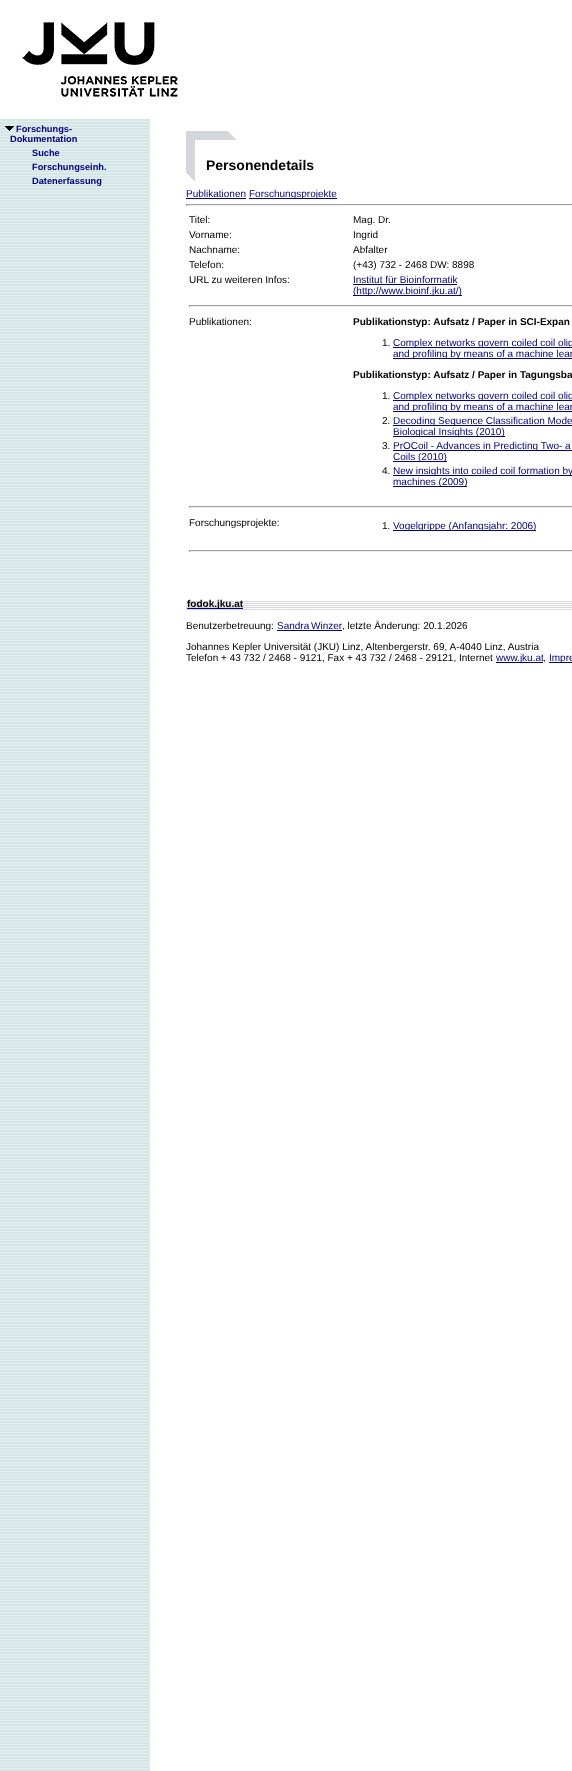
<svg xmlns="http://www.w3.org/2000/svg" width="572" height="1771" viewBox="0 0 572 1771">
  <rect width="100%" height="100%" fill="#ffffff"/>
  <image x="22" y="22" width="156" height="75" href="img1.png"/>
  <image x="0" y="119" width="150" height="1652" href="img2.png"/>
  <image x="5" y="126" width="9" height="5" href="img3.png"/>
  <text x="16" y="132" font-family="Liberation Sans" font-size="9.25" font-weight="bold" fill="#000080">Forschungs-</text>
  <text x="10" y="142" font-family="Liberation Sans" font-size="9.25" font-weight="bold" fill="#000080">Dokumentation</text>
  <text x="32" y="156" font-family="Liberation Sans" font-size="9.25" font-weight="bold" fill="#000080">Suche</text>
  <text x="32" y="170" font-family="Liberation Sans" font-size="9.25" font-weight="bold" fill="#000080">Forschungseinh.</text>
  <text x="32" y="184" font-family="Liberation Sans" font-size="9.25" font-weight="bold" fill="#000080">Datenerfassung</text>
  <image x="186" y="131" width="50" height="50" href="img4.png"/>
  <text x="206" y="170" font-family="Liberation Sans" font-size="14" font-weight="bold" fill="#000000">Personendetails</text>
  <text x="186" y="197" font-family="Liberation Sans" font-size="10" fill="#000080">Publikationen</text>
  <rect x="186" y="198" width="60" height="1" fill="#000080"/>
  <rect x="249" y="198" width="88" height="1" fill="#000080"/>
  <text x="249" y="197" font-family="Liberation Sans" font-size="10" fill="#000080">Forschungsprojekte</text>
  <rect x="186" y="204" width="386" height="1" fill="#9f9f9f"/>
  <rect x="186" y="205" width="386" height="1" fill="#eeeeee"/>
  <rect x="186" y="204" width="1" height="2" fill="#9f9f9f"/>
  <text x="189" y="223" font-family="Liberation Sans" font-size="10" fill="#000000">Titel:</text>
  <text x="353" y="223" font-family="Liberation Sans" font-size="10" fill="#000000">Mag. Dr.</text>
  <text x="189" y="238" font-family="Liberation Sans" font-size="10" fill="#000000">Vorname:</text>
  <text x="353" y="238" font-family="Liberation Sans" font-size="10" fill="#000000">Ingrid</text>
  <text x="189" y="253" font-family="Liberation Sans" font-size="10" fill="#000000">Nachname:</text>
  <text x="353" y="253" font-family="Liberation Sans" font-size="10" fill="#000000">Abfalter</text>
  <text x="189" y="268" font-family="Liberation Sans" font-size="10" fill="#000000">Telefon:</text>
  <text x="353" y="268" font-family="Liberation Sans" font-size="10" fill="#000000">(+43) 732 - 2468 DW: 8898</text>
  <text x="189" y="283" font-family="Liberation Sans" font-size="10" fill="#000000">URL zu weiteren Infos:</text>
  <text x="353" y="283" font-family="Liberation Sans" font-size="10" fill="#000080">Institut für Bioinformatik</text>
  <rect x="353" y="284" width="104" height="1" fill="#000080"/>
  <rect x="353" y="295" width="109" height="1" fill="#000080"/>
  <text x="353" y="294" font-family="Liberation Sans" font-size="10" fill="#000080">(http://www.bioinf.jku.at/)</text>
  <rect x="189" y="305" width="383" height="1" fill="#9f9f9f"/>
  <rect x="189" y="306" width="383" height="1" fill="#eeeeee"/>
  <rect x="189" y="305" width="1" height="2" fill="#9f9f9f"/>
  <text x="189" y="325" font-family="Liberation Sans" font-size="10" fill="#000000">Publikationen:</text>
  <text x="353" y="325" font-family="Liberation Sans" font-size="10" font-weight="bold" fill="#000000">Publikationstyp: Aufsatz / Paper in SCI-Expan</text>
  <text x="382" y="346" font-family="Liberation Sans" font-size="10" fill="#000000">1.</text>
  <rect x="393" y="347" width="179" height="1" fill="#000080"/>
  <text x="393" y="346" font-family="Liberation Sans" font-size="10" fill="#000080">Complex networks govern coiled coil olig</text>
  <rect x="393" y="358" width="179" height="1" fill="#000080"/>
  <text x="393" y="357" font-family="Liberation Sans" font-size="10" fill="#000080">and profiling by means of a machine lear</text>
  <text x="353" y="378" font-family="Liberation Sans" font-size="10" font-weight="bold" fill="#000000">Publikationstyp: Aufsatz / Paper in Tagungsba</text>
  <text x="382" y="399" font-family="Liberation Sans" font-size="10" fill="#000000">1.</text>
  <rect x="393" y="400" width="179" height="1" fill="#000080"/>
  <text x="393" y="399" font-family="Liberation Sans" font-size="10" fill="#000080">Complex networks govern coiled coil olig</text>
  <rect x="393" y="411" width="179" height="1" fill="#000080"/>
  <text x="393" y="410" font-family="Liberation Sans" font-size="10" fill="#000080">and profiling by means of a machine lear</text>
  <text x="382" y="424" font-family="Liberation Sans" font-size="10" fill="#000000">2.</text>
  <rect x="393" y="425" width="179" height="1" fill="#000080"/>
  <text x="393" y="424" font-family="Liberation Sans" font-size="10" fill="#000080">Decoding Sequence Classification Mode</text>
  <rect x="393" y="436" width="112" height="1" fill="#000080"/>
  <text x="393" y="435" font-family="Liberation Sans" font-size="10" fill="#000080">Biological Insights (2010)</text>
  <text x="382" y="449" font-family="Liberation Sans" font-size="10" fill="#000000">3.</text>
  <rect x="393" y="450" width="179" height="1" fill="#000080"/>
  <text x="393" y="449" font-family="Liberation Sans" font-size="10" fill="#000080">PrOCoil - Advances in Predicting Two- a</text>
  <rect x="393" y="461" width="54" height="1" fill="#000080"/>
  <text x="393" y="460" font-family="Liberation Sans" font-size="10" fill="#000080">Coils (2010)</text>
  <text x="382" y="474" font-family="Liberation Sans" font-size="10" fill="#000000">4.</text>
  <rect x="393" y="475" width="179" height="1" fill="#000080"/>
  <text x="393" y="474" font-family="Liberation Sans" font-size="10" fill="#000080">New insights into coiled coil formation by</text>
  <rect x="393" y="486" width="74" height="1" fill="#000080"/>
  <text x="393" y="485" font-family="Liberation Sans" font-size="10" fill="#000080">machines (2009)</text>
  <rect x="189" y="506" width="383" height="1" fill="#9f9f9f"/>
  <rect x="189" y="507" width="383" height="1" fill="#eeeeee"/>
  <rect x="189" y="506" width="1" height="2" fill="#9f9f9f"/>
  <text x="189" y="526" font-family="Liberation Sans" font-size="10" fill="#000000">Forschungsprojekte:</text>
  <text x="382" y="529" font-family="Liberation Sans" font-size="10" fill="#000000">1.</text>
  <rect x="393" y="530" width="143" height="1" fill="#000080"/>
  <text x="393" y="529" font-family="Liberation Sans" font-size="10" fill="#000080">Vogelgrippe (Anfangsjahr: 2006)</text>
  <rect x="189" y="550" width="383" height="1" fill="#9f9f9f"/>
  <rect x="189" y="551" width="383" height="1" fill="#eeeeee"/>
  <rect x="189" y="550" width="1" height="2" fill="#9f9f9f"/>
  <image x="186" y="601" width="386" height="9" href="img5.png"/>
  <rect x="187" y="608" width="56" height="1" fill="#000080"/>
  <text x="187" y="607" font-family="Liberation Sans" font-size="10" font-weight="bold" fill="#000000">fodok.jku.at</text>
  <text x="186" y="629" font-family="Liberation Sans" font-size="10" fill="#000000">Benutzerbetreuung:</text>
  <text x="277" y="629" word-spacing="-1" font-family="Liberation Sans" font-size="10" fill="#000080">Sandra Winzer</text>
  <rect x="277" y="630" width="65" height="1" fill="#000080"/>
  <text x="342" y="629" font-family="Liberation Sans" font-size="10" fill="#000000">, letzte Änderung: 20.1.2026</text>
  <text x="186" y="650" font-family="Liberation Sans" font-size="10" fill="#000000">Johannes Kepler Universität (JKU) Linz, Altenbergerstr. 69, A-4040 Linz, Austria</text>
  <text x="186" y="661" font-family="Liberation Sans" font-size="10" fill="#000000">Telefon + 43 732 / 2468 - 9121, Fax + 43 732 / 2468 - 29121, Internet</text>
  <rect x="496" y="662" width="47" height="1" fill="#000080"/>
  <text x="496" y="661" font-family="Liberation Sans" font-size="10" fill="#000080">www.jku.at</text>
  <text x="543" y="661" font-family="Liberation Sans" font-size="10" fill="#000000">,</text>
  <rect x="549" y="662" width="23" height="1" fill="#000080"/>
  <text x="549" y="661" font-family="Liberation Sans" font-size="10" fill="#000080">Impre</text>
</svg>
